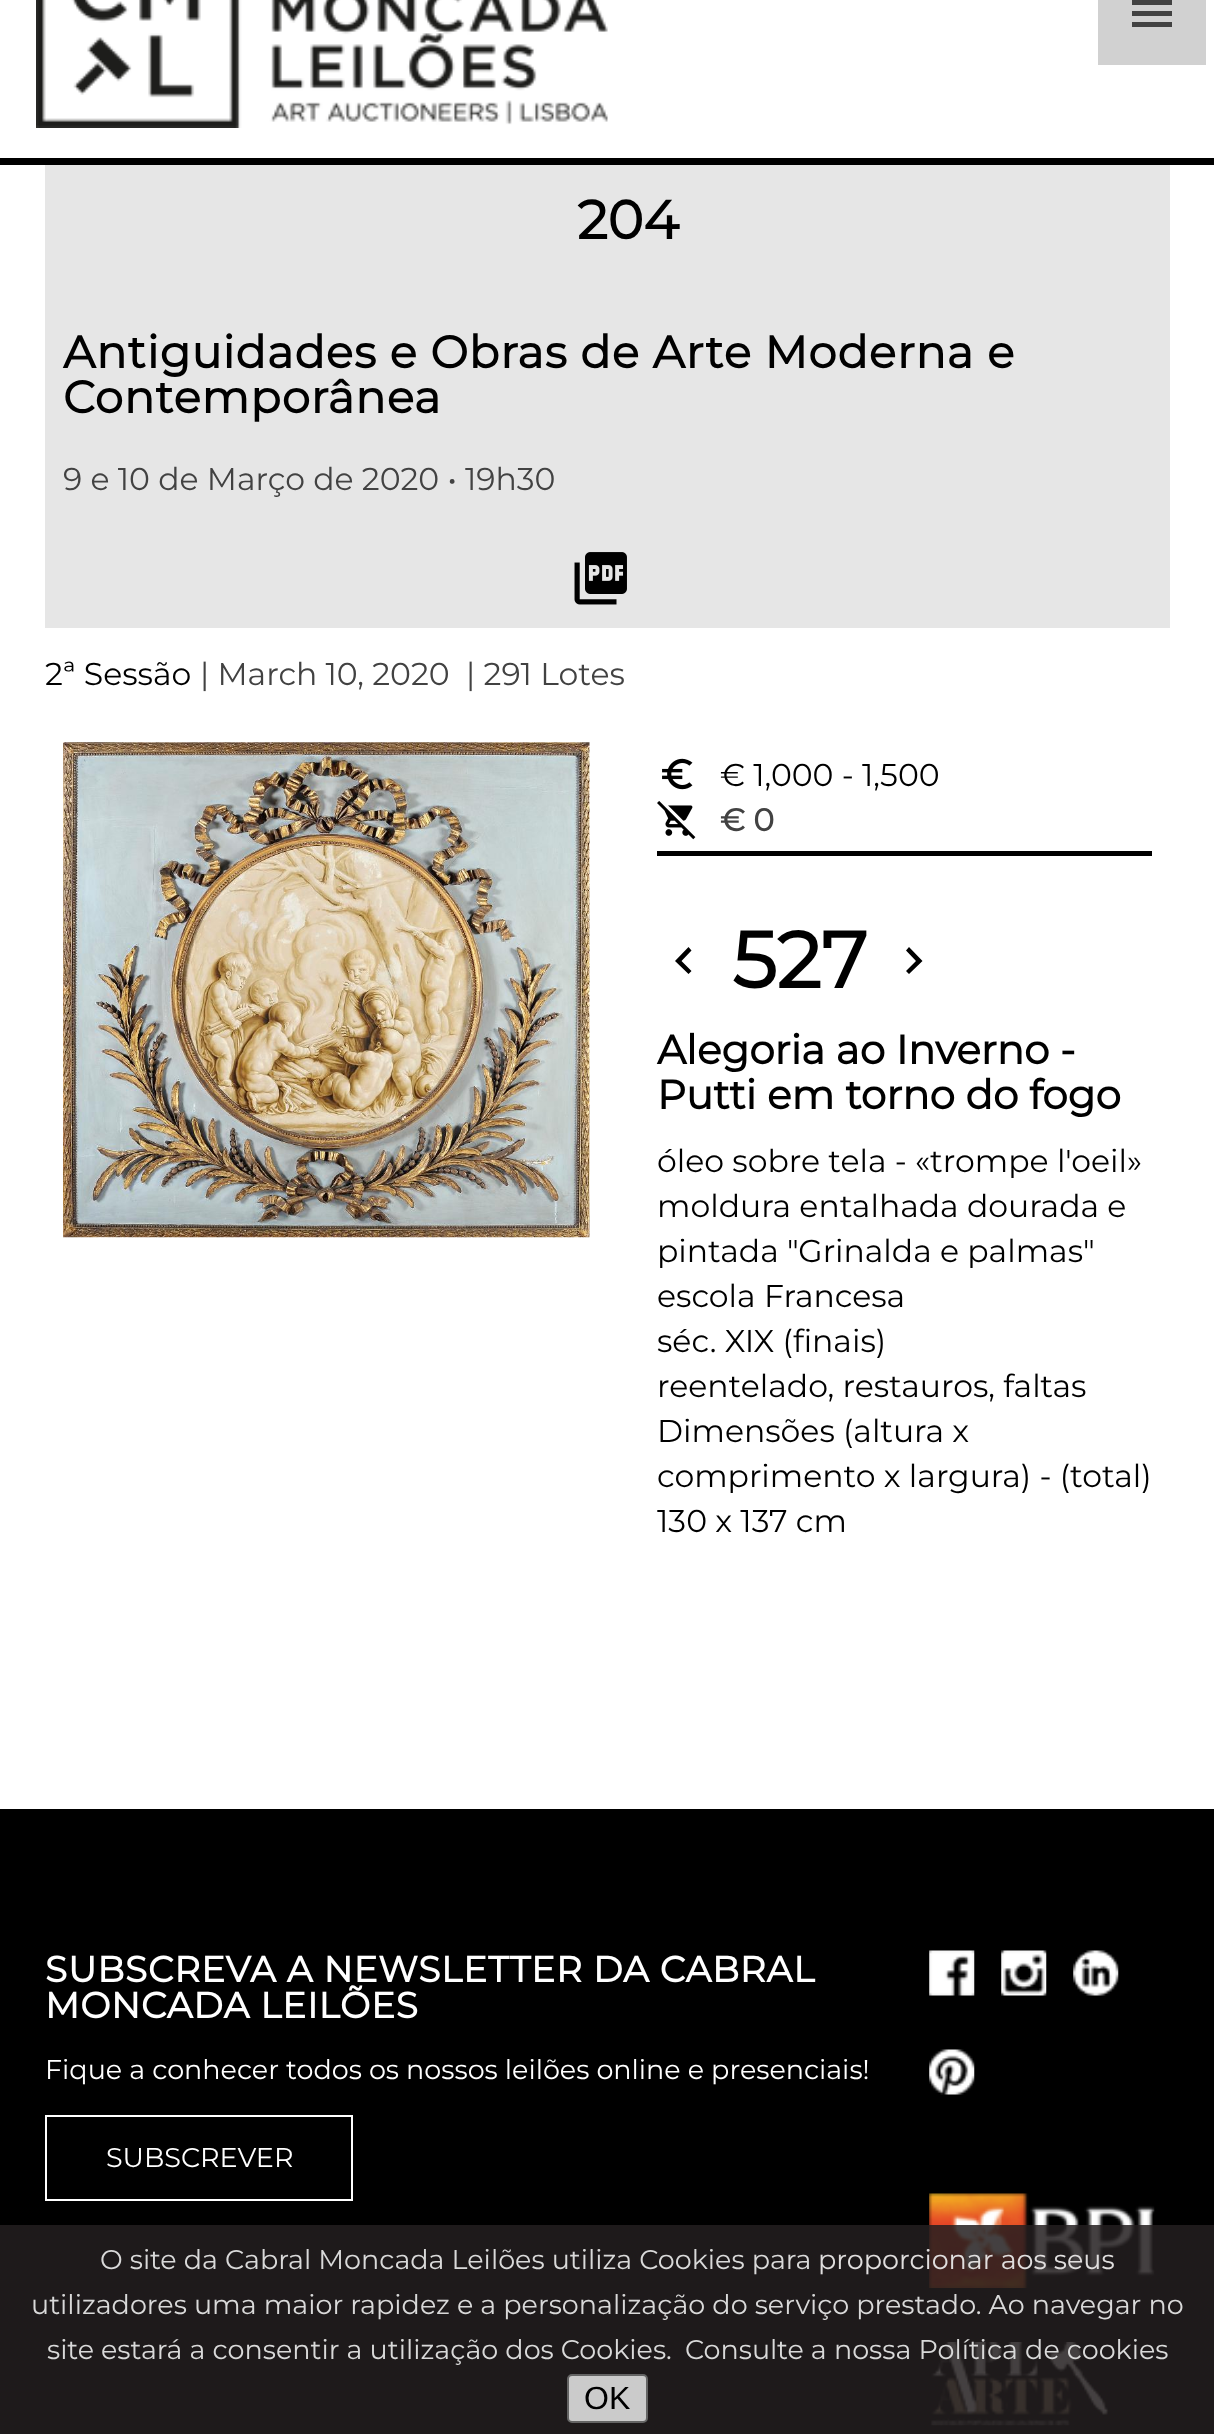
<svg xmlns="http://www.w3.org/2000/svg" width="1214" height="2434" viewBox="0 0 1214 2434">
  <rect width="100%" height="100%" fill="#ffffff"/>
  <rect x="0" y="158" width="1214" height="7" fill="#000000"/>
  <image x="36" y="0" width="572" height="128" href="img1.png"/>
  <rect x="1098" y="0" width="108" height="65" fill="#d1d1d1"/>
  <path d="M1132 0H1172V5H1132ZM1132 16V11H1172V16ZM1132 27V22H1172V27Z" fill="#424242"/>
  <rect x="45" y="165" width="1125" height="463" fill="#e6e6e6"/>
  <text x="577" y="239" font-family="Montserrat" font-size="54" font-weight="bold" fill="#000000">204</text>
  <text x="63" y="368" font-family="Montserrat" font-size="45" font-weight="bold" letter-spacing="0.9" fill="#000000">Antiguidades e Obras de Arte Moderna e</text>
  <text x="63" y="413" font-family="Montserrat" font-size="45" font-weight="bold" letter-spacing="0.9" fill="#000000">Contemporânea</text>
  <text x="63" y="490" font-family="Montserrat" font-size="31.5" font-weight="100" fill="#424242">9 e 10 de Março de 2020 • 19h30</text>
  <image x="574" y="552" width="53" height="53" href="img2.png"/>
  <text x="45" y="685" font-family="Montserrat" font-size="31.5" font-weight="100" fill="#000000">2ª Sessão</text>
  <text x="200" y="685" font-family="Montserrat" font-size="31.5" font-weight="100" fill="#424242">| March 10, 2020</text>
  <text x="466" y="685" font-family="Montserrat" font-size="31.5" font-weight="100" fill="#424242">| 291 Lotes</text>
  <image x="63" y="742" width="527" height="496" href="img3.png"/>
  <rect x="657" y="851" width="495" height="5" fill="#000000"/>
  <image x="662" y="758" width="31" height="32" href="img4.png"/>
  <text x="720" y="786" font-family="Montserrat" font-size="31.5" font-weight="100" fill="#000000">€ 1,000 - 1,500</text>
  <image x="657" y="801" width="39" height="39" href="img5.png"/>
  <text x="720" y="831" font-family="Montserrat" font-size="31.5" font-weight="bold" fill="#424242">€ 0</text>
  <path d="M691.5 950.5L681.5 961L691.5 971L688.5 974L675 961L688.5 947Z" fill="#000000"/>
  <text x="732" y="988" font-family="Montserrat" font-size="79" font-weight="bold" fill="#000000">527</text>
  <path d="M909 947L922.5 961L909 974L906 971L916 961L906 950.5Z" fill="#000000"/>
  <text x="657" y="1064" font-family="Montserrat" font-size="40.5" font-weight="bold" fill="#000000">Alegoria ao Inverno -</text>
  <text x="657" y="1109" font-family="Montserrat" font-size="40.5" font-weight="bold" fill="#000000">Putti em torno do fogo</text>
  <text x="657" y="1172" font-family="Montserrat" font-size="31.5" font-weight="100" fill="#000000">óleo sobre tela - «trompe l'oeil»</text>
  <text x="657" y="1217" font-family="Montserrat" font-size="31.5" font-weight="100" fill="#000000">moldura entalhada dourada e</text>
  <text x="657" y="1262" font-family="Montserrat" font-size="31.5" font-weight="100" fill="#000000">pintada "Grinalda e palmas"</text>
  <text x="657" y="1307" font-family="Montserrat" font-size="31.5" font-weight="100" fill="#000000">escola Francesa</text>
  <text x="657" y="1352" font-family="Montserrat" font-size="31.5" font-weight="100" fill="#000000">séc. XIX (finais)</text>
  <text x="657" y="1397" font-family="Montserrat" font-size="31.5" font-weight="100" fill="#000000">reentelado, restauros, faltas</text>
  <text x="657" y="1442" font-family="Montserrat" font-size="31.5" font-weight="100" fill="#000000">Dimensões (altura x</text>
  <text x="657" y="1487" font-family="Montserrat" font-size="31.5" font-weight="100" fill="#000000">comprimento x largura) - (total)</text>
  <text x="657" y="1532" font-family="Montserrat" font-size="31.5" font-weight="100" fill="#000000">130 x 137 cm</text>
  <rect x="0" y="1809" width="1214" height="625" fill="#000000"/>
  <text x="45" y="1982" font-family="Montserrat" font-size="36" font-weight="bold" letter-spacing="0.75" fill="#ffffff">SUBSCREVA A NEWSLETTER DA CABRAL</text>
  <text x="45" y="2018" font-family="Montserrat" font-size="36" font-weight="bold" letter-spacing="0.75" fill="#ffffff">MONCADA LEILÕES</text>
  <text x="45" y="2079" font-family="Montserrat" font-size="27" font-weight="100" fill="#ffffff">Fique a conhecer todos os nossos leilões online e presenciais!</text>
  <rect x="46" y="2116" width="306" height="84" fill="none" stroke="#ffffff" stroke-width="2"/>
  <text x="106" y="2167" font-family="Montserrat" font-size="27" font-weight="100" fill="#ffffff">SUBSCREVER</text>
  <image x="929" y="1950" width="46" height="46" href="img6.png"/>
  <image x="1001" y="1950" width="46" height="46" href="img7.png"/>
  <image x="1073" y="1950" width="46" height="46" href="img8.png"/>
  <image x="929" y="2049" width="46" height="46" href="img9.png"/>
  <image x="929" y="2193" width="226" height="95" href="img10.png"/>
  <image x="929" y="2342" width="180" height="84" href="img11.png"/>
  <rect x="0" y="2225" width="1214" height="209" fill="#231f20" fill-opacity="0.85"/>
  <text x="100" y="2269" font-family="Montserrat" font-size="27" font-weight="100" fill="#d9d9d9">O site da Cabral Moncada Leilões utiliza Cookies para</text>
  <text x="818" y="2269" font-family="Montserrat" font-size="27" font-weight="100" fill="#e0dede">proporcionar aos seus</text>
  <text x="31" y="2314" font-family="Montserrat" font-size="27" font-weight="100" fill="#d9d9d9">utilizadores uma maior rapidez e a personalização do serviço prestado. Ao navegar no</text>
  <text x="47" y="2359" font-family="Montserrat" font-size="27" font-weight="100" fill="#d9d9d9">site</text>
  <text x="101" y="2359" font-family="Montserrat" font-size="27" font-weight="100" fill="#d9d9d9">estará a consentir a utilização dos Cookies.</text>
  <text x="685" y="2359" font-family="Montserrat" font-size="27" font-weight="100" fill="#d9d9d9">Consulte a nossa Política de cookies</text>
  <rect x="568" y="2375" width="79" height="47" rx="4" fill="#cbcbcb" stroke="#646464" stroke-width="2"/>
  <text x="584" y="2409" font-family="Liberation Sans" font-size="32" fill="#000000">OK</text>
</svg>
